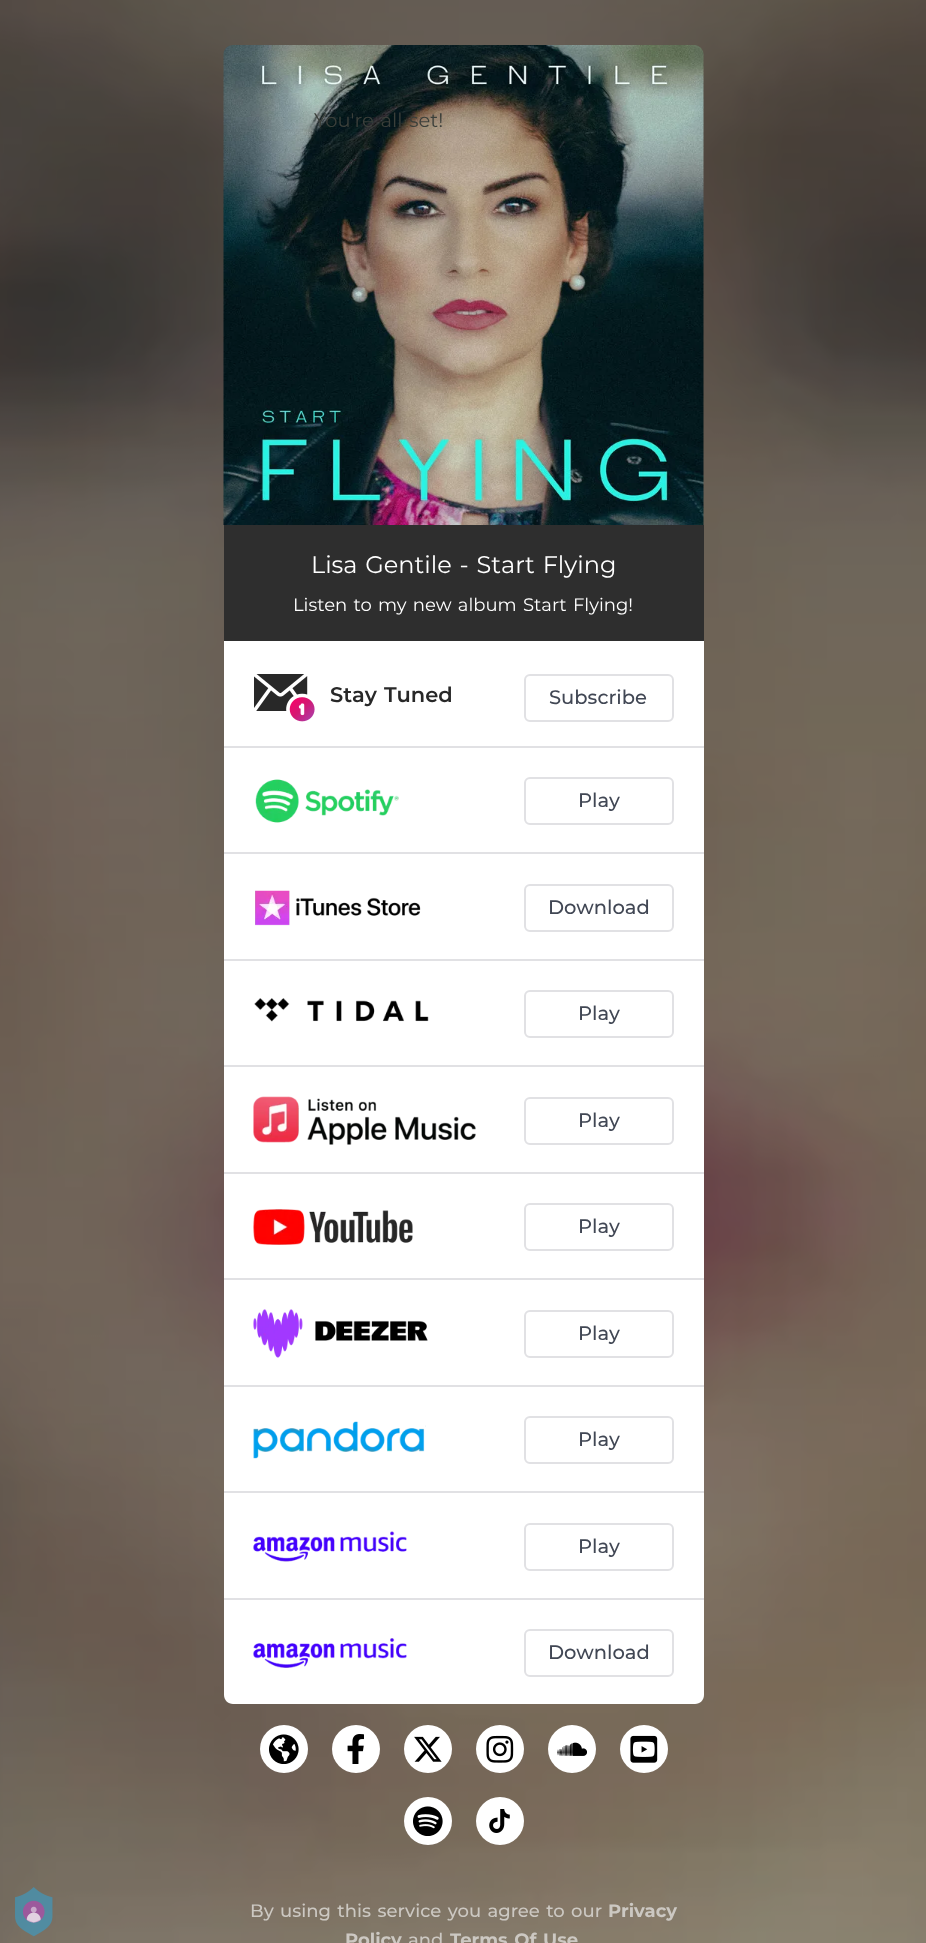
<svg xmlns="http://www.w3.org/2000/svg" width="926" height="1943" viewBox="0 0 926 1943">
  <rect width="100%" height="100%" fill="#ffffff"/>
  <image x="0" y="0" width="926" height="1943" href="img2.png"/>
  <image x="15" y="1887" width="38" height="50" href="img1.png"/>
  <image x="223" y="45" width="481" height="480" href="img3.png"/>
  <text x="314" y="127" word-spacing="1.5" font-family="Montserrat" font-size="19.5" fill="#3b3f3a">You're all set!</text>
  <rect x="224" y="525" width="480" height="116" fill="#2e2e2e"/>
  <text x="311" y="573" word-spacing="1.5" font-family="Montserrat" font-size="24" fill="#ffffff">Lisa Gentile - Start Flying</text>
  <text x="293" y="611" word-spacing="1.5" font-family="Montserrat" font-size="18" fill="#ffffff">Listen to my new album Start Flying!</text>
  <path d="M224 641H704V1695C704 1700 700 1704 695 1704H233C228 1704 224 1700 224 1695Z" fill="#ffffff"/>
  <rect x="224" y="746" width="480" height="2" fill="#e1e1e4"/>
  <image x="254" y="674" width="61" height="48" href="img4.png"/>
  <text x="330" y="702" word-spacing="1.5" font-family="Montserrat" font-size="21" font-weight="600" fill="#282828">Stay Tuned</text>
  <rect x="525" y="675" width="148" height="46" rx="5" fill="none" stroke="#e1e1e4" stroke-width="2"/>
  <text x="549" y="704" font-family="Montserrat" font-size="19.5" font-weight="500" fill="#414754">Subscribe</text>
  <rect x="224" y="852" width="480" height="2" fill="#e1e1e4"/>
  <image x="255" y="779" width="144" height="44" href="img5.png"/>
  <rect x="525" y="778" width="148" height="46" rx="5" fill="none" stroke="#e1e1e4" stroke-width="2"/>
  <text x="578" y="807" font-family="Montserrat" font-size="19.5" font-weight="500" fill="#414754">Play</text>
  <rect x="224" y="959" width="480" height="2" fill="#e1e1e4"/>
  <image x="255" y="890" width="166" height="36" href="img6.png"/>
  <rect x="525" y="885" width="148" height="46" rx="5" fill="none" stroke="#e1e1e4" stroke-width="2"/>
  <text x="548" y="914" font-family="Montserrat" font-size="19.5" font-weight="500" fill="#414754">Download</text>
  <rect x="224" y="1065" width="480" height="2" fill="#e1e1e4"/>
  <image x="254" y="998" width="175" height="24" href="img7.png"/>
  <rect x="525" y="991" width="148" height="46" rx="5" fill="none" stroke="#e1e1e4" stroke-width="2"/>
  <text x="578" y="1020" font-family="Montserrat" font-size="19.5" font-weight="500" fill="#414754">Play</text>
  <rect x="224" y="1172" width="480" height="2" fill="#e1e1e4"/>
  <image x="253" y="1096" width="223" height="49" href="img8.png"/>
  <rect x="525" y="1098" width="148" height="46" rx="5" fill="none" stroke="#e1e1e4" stroke-width="2"/>
  <text x="578" y="1127" font-family="Montserrat" font-size="19.5" font-weight="500" fill="#414754">Play</text>
  <rect x="224" y="1278" width="480" height="2" fill="#e1e1e4"/>
  <image x="253" y="1209" width="160" height="36" href="img9.png"/>
  <rect x="525" y="1204" width="148" height="46" rx="5" fill="none" stroke="#e1e1e4" stroke-width="2"/>
  <text x="578" y="1233" font-family="Montserrat" font-size="19.5" font-weight="500" fill="#414754">Play</text>
  <rect x="224" y="1385" width="480" height="2" fill="#e1e1e4"/>
  <image x="253" y="1309" width="175" height="49" href="img10.png"/>
  <rect x="525" y="1311" width="148" height="46" rx="5" fill="none" stroke="#e1e1e4" stroke-width="2"/>
  <text x="578" y="1340" font-family="Montserrat" font-size="19.5" font-weight="500" fill="#414754">Play</text>
  <rect x="224" y="1491" width="480" height="2" fill="#e1e1e4"/>
  <image x="253" y="1421" width="173" height="38" href="img11.png"/>
  <rect x="525" y="1417" width="148" height="46" rx="5" fill="none" stroke="#e1e1e4" stroke-width="2"/>
  <text x="578" y="1446" font-family="Montserrat" font-size="19.5" font-weight="500" fill="#414754">Play</text>
  <rect x="224" y="1598" width="480" height="2" fill="#e1e1e4"/>
  <image x="253" y="1531" width="154" height="31" href="img12.png"/>
  <rect x="525" y="1524" width="148" height="46" rx="5" fill="none" stroke="#e1e1e4" stroke-width="2"/>
  <text x="578" y="1553" font-family="Montserrat" font-size="19.5" font-weight="500" fill="#414754">Play</text>
  <image x="253" y="1638" width="154" height="30" href="img13.png"/>
  <rect x="525" y="1630" width="148" height="46" rx="5" fill="none" stroke="#e1e1e4" stroke-width="2"/>
  <text x="548" y="1659" font-family="Montserrat" font-size="19.5" font-weight="500" fill="#414754">Download</text>
  <circle cx="284" cy="1749" r="24" fill="#ffffff"/>
  <image x="269" y="1734" width="30" height="30" href="img14.png"/>
  <circle cx="356" cy="1749" r="24" fill="#ffffff"/>
  <image x="347" y="1734" width="17" height="30" href="img15.png"/>
  <circle cx="428" cy="1749" r="24" fill="#ffffff"/>
  <image x="414" y="1736" width="28" height="26" href="img16.png"/>
  <circle cx="500" cy="1749" r="24" fill="#ffffff"/>
  <image x="486" y="1735" width="28" height="28" href="img17.png"/>
  <circle cx="572" cy="1749" r="24" fill="#ffffff"/>
  <image x="557" y="1742" width="30" height="14" href="img18.png"/>
  <circle cx="644" cy="1749" r="24" fill="#ffffff"/>
  <image x="630" y="1735" width="28" height="28" href="img19.png"/>
  <circle cx="428" cy="1821" r="24" fill="#ffffff"/>
  <image x="413" y="1806" width="30" height="30" href="img20.png"/>
  <circle cx="500" cy="1821" r="24" fill="#ffffff"/>
  <image x="489" y="1809" width="21" height="24" href="img21.png"/>
  <text x="250" y="1917" word-spacing="1.5" font-family="Montserrat" font-size="18" font-weight="500" fill="#ccc8c2">By using this service you agree to our</text>
  <text x="608" y="1917" font-family="Montserrat" font-size="18" font-weight="bold" fill="#ccc8c2">Privacy</text>
  <text x="345" y="1946" font-family="Montserrat" font-size="18" font-weight="bold" fill="#ccc8c2">Policy</text>
  <text x="408" y="1946" font-family="Montserrat" font-size="18" font-weight="500" fill="#ccc8c2">and</text>
  <text x="450" y="1946" word-spacing="1.5" font-family="Montserrat" font-size="18" font-weight="bold" fill="#ccc8c2">Terms Of Use</text>
</svg>
